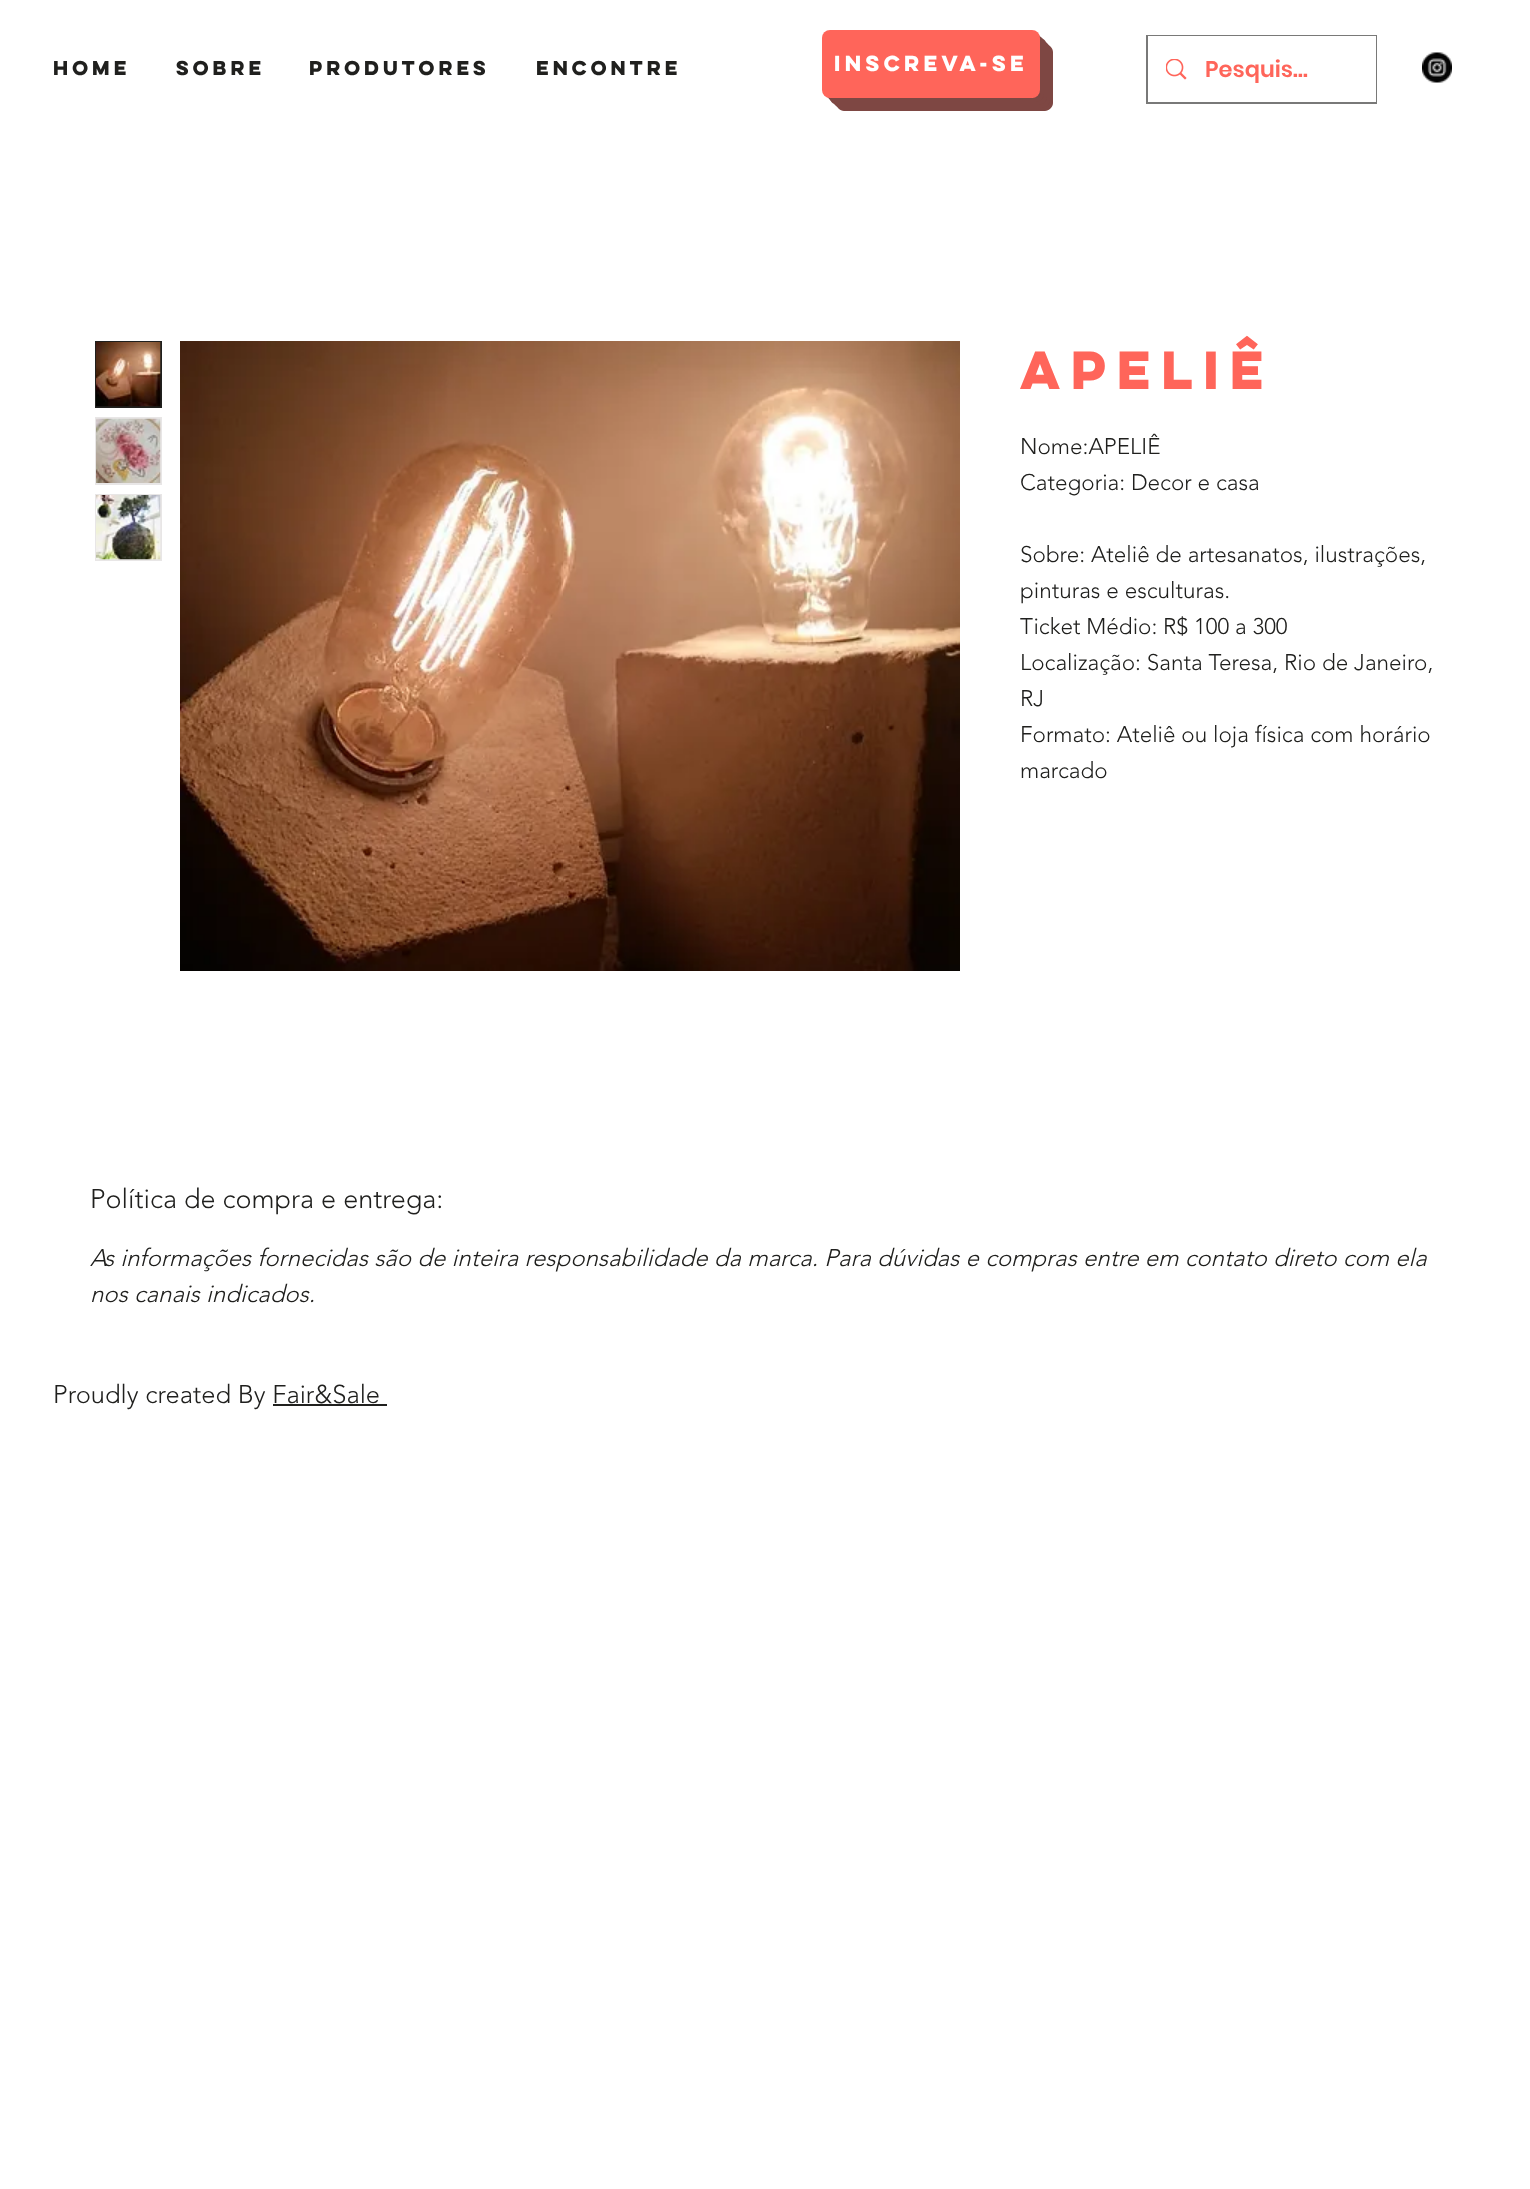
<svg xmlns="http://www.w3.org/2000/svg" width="1530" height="2189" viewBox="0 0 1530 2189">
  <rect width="100%" height="100%" fill="#ffffff"/>
  <text x="53" y="75" font-family="'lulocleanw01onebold'" font-size="18" font-weight="bold" fill="#20201e">Home</text>
  <text x="176" y="75" font-family="'lulocleanw01onebold'" font-size="18" font-weight="bold" fill="#20201e">Sobre</text>
  <text x="309" y="75" font-family="'lulocleanw01onebold'" font-size="18" font-weight="bold" fill="#20201e">Produtores</text>
  <text x="536" y="75" font-family="'lulocleanw01onebold'" font-size="18" font-weight="bold" fill="#20201e">Encontre</text>
  <path d="M836 98V103C836 107 840 111 844 111H1045C1049 111 1053 107 1053 103V52C1053 48 1049 44 1045 44H1040V90C1040 94 1036 98 1032 98Z" fill="#7e4743"/>
  <path d="M833 98V100C833 104 837 108 841 108H1042C1046 108 1050 104 1050 100V49C1050 45 1046 41 1042 41H1040V90C1040 94 1036 98 1032 98Z" fill="#7e4743"/>
  <path d="M830 98C830 102 834 105 838 105H1039C1043 105 1047 101 1047 97V46C1047 42 1044 38 1040 38V90C1040 94 1036 98 1032 98Z" fill="#7e4743"/>
  <path d="M828 97C829 100 832 102 835 102H1036C1040 102 1044 98 1044 94V43C1044 40 1042 37 1039 36V92C1037 103 1008 98 998 98Z" fill="#7e4743"/>
  <path d="M827 97C828 98 830 99 832 99H1033C1037 99 1041 95 1041 91V40C1041 38 1040 36 1039 35L1040 38V90C1040 94 1036 98 1032 98H830Z" fill="#7e4743"/>
  <rect x="822" y="30" width="218" height="68" rx="8" fill="#ff655a"/>
  <text x="834" y="71" font-family="'lulocleanw01onebold'" font-size="19.5" font-weight="bold" fill="#ffffff">Inscreva-se</text>
  <rect x="1147" y="36" width="229" height="67" fill="none" stroke="#797978" stroke-width="2"/>
  <rect x="1148" y="36" width="228" height="66" fill="#ffffff"/>
  <image x="1166" y="59" width="21" height="21" href="img1.png"/>
  <text x="1205" y="77" font-family="Poppins" font-size="22.5" font-weight="600" fill="#ff655a">Pesquis…</text>
  <image x="1422" y="52" width="30" height="31" href="img2.png"/>
  <rect x="96" y="342" width="65" height="65" fill="none" stroke="#20201e" stroke-width="2"/>
  <image x="96" y="342" width="65" height="65" href="img3.png"/>
  <rect x="96" y="418" width="65" height="66" fill="none" stroke="#e8e6e6" stroke-width="2"/>
  <image x="96" y="418" width="65" height="65" href="img4.png"/>
  <rect x="96" y="495" width="65" height="65" fill="none" stroke="#e8e6e6" stroke-width="2"/>
  <image x="96" y="495" width="65" height="65" href="img5.png"/>
  <image x="180" y="341" width="780" height="630" href="img6.png"/>
  <text x="1020" y="389" font-family="'lulocleanw01onebold'" font-size="48" font-weight="bold" fill="#ff655a">APELIÊ</text>
  <text x="1020" y="454" font-family="'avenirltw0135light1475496'" font-size="22.5" font-weight="300" fill="#20201e">Nome:APELIÊ</text>
  <text x="1020" y="490" font-family="'avenirltw0135light1475496'" font-size="22.5" font-weight="300" fill="#20201e">Categoria: Decor e casa</text>
  <text x="1020" y="562" font-family="'avenirltw0135light1475496'" font-size="22.5" font-weight="300" fill="#20201e">Sobre: Ateliê de artesanatos, ilustrações,</text>
  <text x="1020" y="598" font-family="'avenirltw0135light1475496'" font-size="22.5" font-weight="300" fill="#20201e">pinturas e esculturas.</text>
  <text x="1020" y="634" font-family="'avenirltw0135light1475496'" font-size="22.5" font-weight="300" fill="#20201e">Ticket Médio: R$ 100 a 300</text>
  <text x="1020" y="670" font-family="'avenirltw0135light1475496'" font-size="22.5" font-weight="300" fill="#20201e">Localização: Santa Teresa, Rio de Janeiro,</text>
  <text x="1020" y="706" font-family="'avenirltw0135light1475496'" font-size="22.5" font-weight="300" fill="#20201e">RJ</text>
  <text x="1020" y="742" font-family="'avenirltw0135light1475496'" font-size="22.5" font-weight="300" fill="#20201e">Formato: Ateliê ou loja física com horário</text>
  <text x="1020" y="778" font-family="'avenirltw0135light1475496'" font-size="22.5" font-weight="300" fill="#20201e">marcado</text>
  <text x="90" y="1208" font-family="'avenirltw0135light1475496'" font-size="27" font-weight="300" fill="#20201e">Política de compra e entrega:</text>
  <text x="90" y="1266" font-family="'avenirltw0135light1475496'" font-size="24" font-weight="300" font-style="italic" fill="#20201e">As informações fornecidas são de inteira responsabilidade da marca. Para dúvidas e compras entre em contato direto com ela</text>
  <text x="90" y="1302" font-family="'avenirltw0135light1475496'" font-size="24" font-weight="300" font-style="italic" fill="#20201e">nos canais indicados.</text>
  <text x="53" y="1403" font-family="'avenirltw0135light1475496'" font-size="25.5" font-weight="300" fill="#20201e">Proudly created By Fair&amp;Sale</text>
  <rect x="273" y="1404" width="114" height="2" fill="#20201e"/>
</svg>
